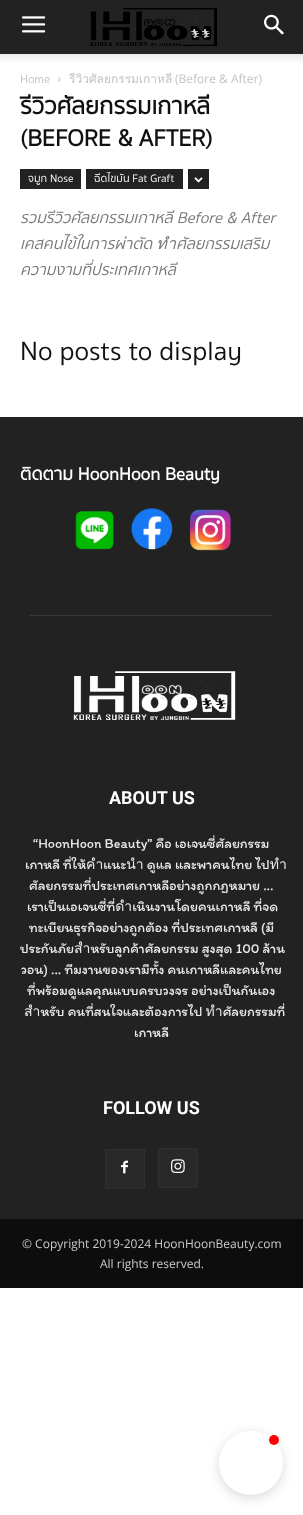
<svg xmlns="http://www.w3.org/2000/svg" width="303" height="1515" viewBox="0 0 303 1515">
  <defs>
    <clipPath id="clip1"><rect x="20" y="458" width="263" height="107"/></clipPath>
    <filter id="blur1" x="-50%" y="-200%" width="200%" height="500%"><feGaussianBlur stdDeviation="6"/></filter>
  </defs>
  <rect width="100%" height="100%" fill="#ffffff"/>
  <rect x="0" y="0" width="303" height="54" fill="#222222"/>
  <image x="22" y="16" width="24" height="17" href="img1.png"/>
  <image x="90" y="8" width="127" height="38" href="img2.png"/>
  <image x="264" y="14" width="20" height="21" href="img3.png"/>
  <image x="0" y="54" width="303" height="9" href="img4.png"/>
  <text x="20" y="83" font-family="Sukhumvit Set" font-size="12" fill="#c3c3c3">Home</text>
  <image x="58" y="77" width="3" height="5" href="img5.png"/>
  <text x="69" y="83" font-family="Loma" font-size="12" fill="#c3c3c3">รีวิวศัลยกรรมเกาหลี</text>
  <text x="175" y="83" font-family="Open Sans" font-size="12" fill="#c3c3c3">(Before &amp; After)</text>
  <text x="20" y="114" font-family="Sukhumvit Set" font-size="24" font-weight="bold" fill="#111111">รีวิวศัลยกรรมเกาหลี</text>
  <text x="20" y="146" font-family="Sukhumvit Set" font-size="24" font-weight="bold" fill="#111111">(BEFORE &amp; AFTER)</text>
  <rect x="20" y="169" width="61" height="20" fill="#222222"/>
  <text x="28" y="182" font-family="Sukhumvit Set" font-size="11" fill="#ffffff">จมูก Nose</text>
  <rect x="86" y="169" width="97" height="20" fill="#222222"/>
  <text x="94" y="182" font-family="Sukhumvit Set" font-size="11" fill="#ffffff">ฉีดไขมัน Fat Graft</text>
  <rect x="188" y="169" width="21" height="20" fill="#222222"/>
  <image x="194" y="177" width="9" height="6" href="img6.png"/>
  <text x="20" y="223" font-family="Sukhumvit Set" font-size="16" font-style="italic" fill="#777777">รวมรีวิวศัลยกรรมเกาหลี Before &amp; After</text>
  <text x="20" y="249" font-family="Sukhumvit Set" font-size="16" font-style="italic" fill="#777777">เคสคนไข้ในการผ่าตัด ทำศัลยกรรมเสริม</text>
  <text x="20" y="275" font-family="Sukhumvit Set" font-size="16" font-style="italic" fill="#777777">ความงามที่ประเทศเกาหลี</text>
  <text x="20" y="360" font-family="Sukhumvit Set" font-size="27" fill="#111111">No posts to display</text>
  <rect x="0" y="417" width="303" height="802" fill="#222222"/>
  <g clip-path="url(#clip1)">
    <text x="20" y="480" font-family="Sukhumvit Set" font-size="18" font-weight="bold" fill="#ffffff">ติดตาม HoonHoon Beauty</text>
  </g>
  <image x="75" y="511" width="39" height="39" href="img7.png"/>
  <image x="131" y="508" width="42" height="42" href="img8.png"/>
  <image x="190" y="509" width="41" height="42" href="img9.png"/>
  <rect x="30" y="615" width="243" height="1" fill="#383838"/>
  <image x="73" y="671" width="163" height="49" href="img10.png"/>
  <text x="109" y="804" font-family="Roboto" font-size="18" font-weight="bold" fill="#ffffff">ABOUT US</text>
  <text x="33" y="848" font-family="Itim" font-size="14" fill="#eaeaea">“HoonHoon Beauty” คือ เอเจนซี่ศัลยกรรม</text>
  <text x="25" y="869" font-family="Itim" font-size="14" fill="#eaeaea">เกาหลี ที่ให้คำแนะนำ ดูแล และพาคนไทย ไปทำ</text>
  <text x="29" y="890" font-family="Itim" font-size="14" fill="#eaeaea">ศัลยกรรมที่ประเทศเกาหลีอย่างถูกกฏหมาย ...</text>
  <text x="27" y="911" font-family="Itim" font-size="14" fill="#eaeaea">เราเป็นเอเจนซี่ที่ดำเนินงานโดยคนเกาหลี ที่จด</text>
  <text x="29" y="932" font-family="Itim" font-size="14" fill="#eaeaea">ทะเบียนธุรกิจอย่างถูกต้อง ที่ประเทศเกาหลี (มี</text>
  <text x="20" y="953" font-family="Itim" font-size="14" fill="#eaeaea">ประกันภัยสำหรับลูกค้าศัลยกรรม สูงสุด 100 ล้าน</text>
  <text x="21" y="974" font-family="Itim" font-size="14" fill="#eaeaea">วอน) ... ทีมงานของเรามีทั้ง คนเกาหลีและคนไทย</text>
  <text x="27" y="995" font-family="Itim" font-size="14" fill="#eaeaea">ที่พร้อมดูแลคุณแบบครบวงจร อย่างเป็นกันเอง</text>
  <text x="24" y="1016" font-family="Itim" font-size="14" fill="#eaeaea">สำหรับ คนที่สนใจและต้องการไป ทำศัลยกรรมที่</text>
  <text x="134" y="1037" font-family="Itim" font-size="14" fill="#eaeaea">เกาหลี</text>
  <text x="103" y="1114" font-family="Roboto" font-size="18" font-weight="bold" fill="#ffffff">FOLLOW US</text>
  <rect x="106" y="1150" width="38" height="38" fill="#292929"/>
  <image x="121" y="1160" width="7" height="14" href="img11.png"/>
  <rect x="105.5" y="1149.5" width="39" height="39" fill="none" stroke="#2f2f2f"/>
  <rect x="159" y="1149" width="38" height="38" fill="#292929"/>
  <image x="171" y="1159" width="14" height="14" href="img12.png"/>
  <rect x="158.5" y="1148.5" width="39" height="39" fill="none" stroke="#2f2f2f"/>
  <rect x="0" y="1219" width="303" height="69" fill="#0d0d0d"/>
  <text x="22" y="1248" font-family="Open Sans" font-size="12" fill="#cccccc">© Copyright 2019-2024 HoonHoonBeauty.com</text>
  <text x="100" y="1268" font-family="Open Sans" font-size="12" fill="#cccccc">All rights reserved.</text>
  <rect x="219" y="1434" width="64" height="64" rx="32" fill="#000000" fill-opacity="0.15" filter="url(#blur1)"/>
  <circle cx="251" cy="1463" r="32" fill="#ffffff"/>
  <circle cx="274" cy="1440" r="5" fill="#ff0000"/>
</svg>
